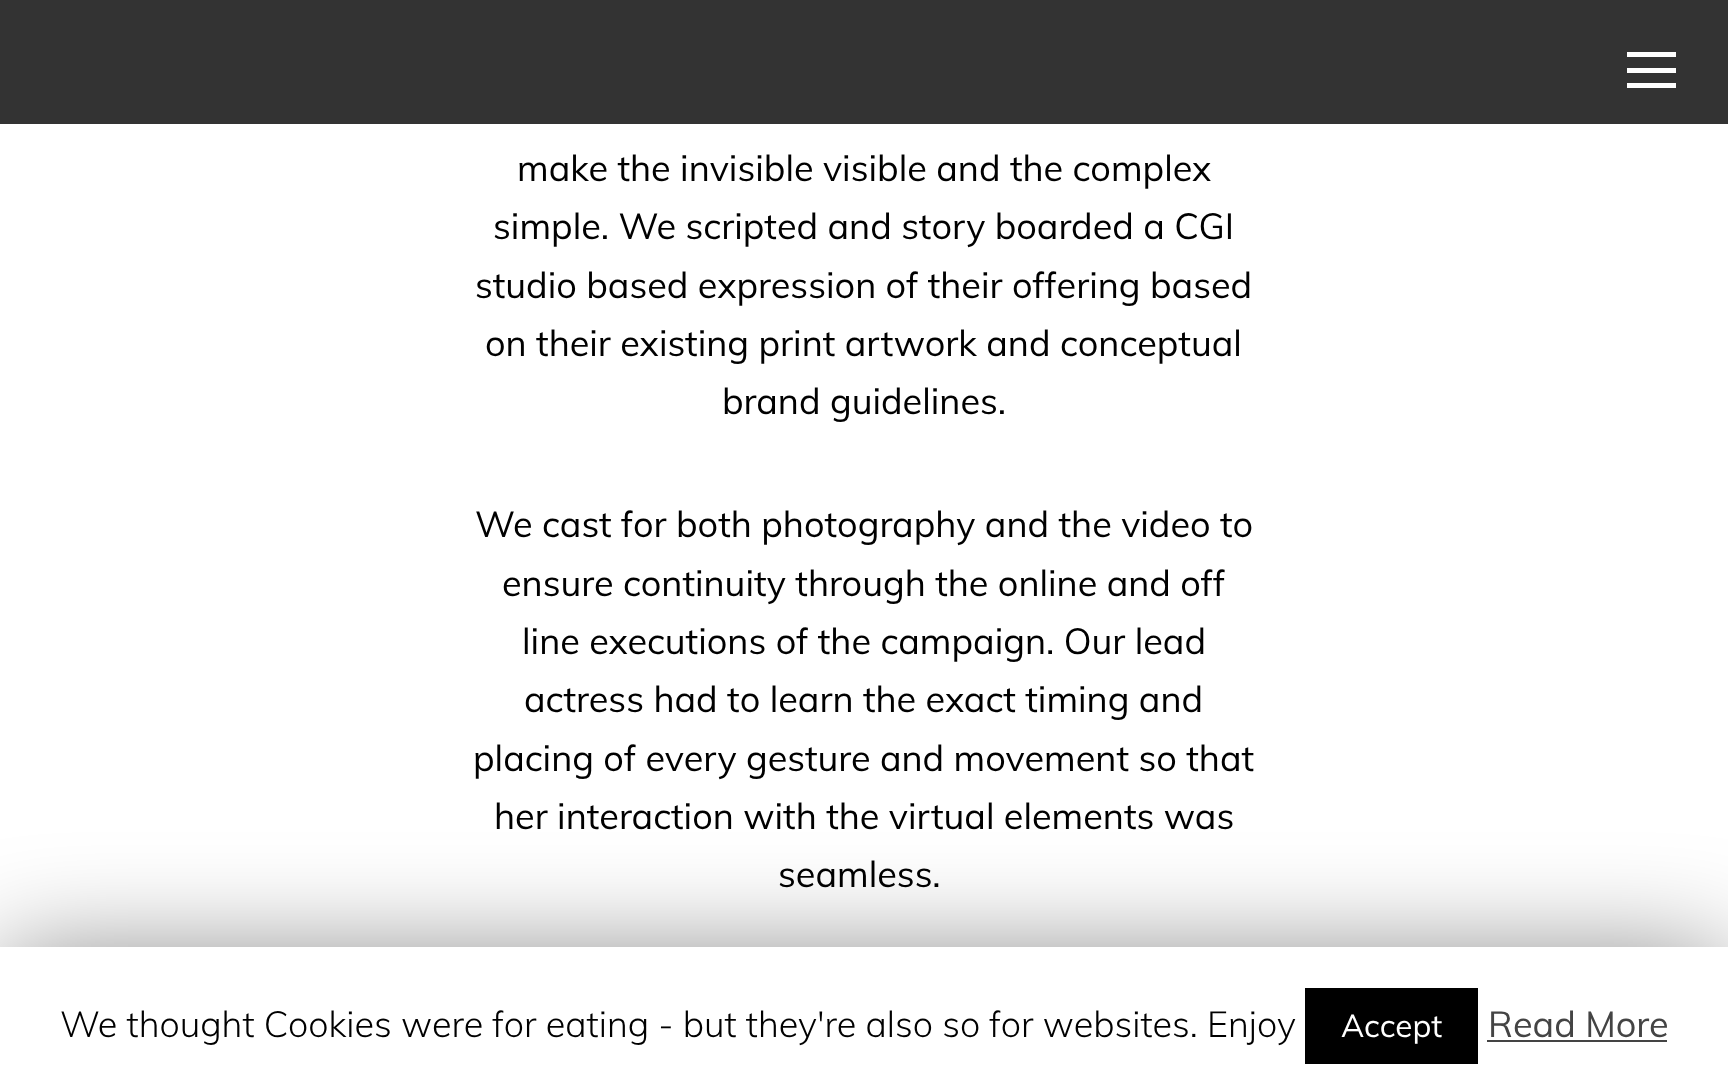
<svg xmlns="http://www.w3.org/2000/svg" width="1728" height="1092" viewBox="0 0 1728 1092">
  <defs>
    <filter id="blur1" x="-50%" y="-200%" width="200%" height="500%"><feGaussianBlur stdDeviation="56"/></filter>
  </defs>
  <rect width="100%" height="100%" fill="#ffffff"/>
  <rect x="0" y="0" width="1728" height="124" fill="#000000" fill-opacity="0.8"/>
  <rect x="1627" y="52" width="49" height="5" fill="#ffffff"/>
  <rect x="1627" y="83" width="49" height="5" fill="#ffffff"/>
  <rect x="1627" y="68" width="49" height="5" fill="#ffffff"/>
  <text x="517" y="181" font-family="Muli" font-size="36" fill="#000000">make the invisible visible and the complex</text>
  <text x="493" y="239" font-family="Muli" font-size="36" fill="#000000">simple. We scripted and story boarded a CGI</text>
  <text x="475" y="298" font-family="Muli" font-size="36" fill="#000000">studio based expression of their offering based</text>
  <text x="485" y="356" font-family="Muli" font-size="36" fill="#000000">on their existing print artwork and conceptual</text>
  <text x="722" y="414" font-family="Muli" font-size="36" fill="#000000">brand guidelines.</text>
  <text x="475" y="537" font-family="Muli" font-size="36" fill="#000000">We cast for both photography and the video to</text>
  <text x="502" y="596" font-family="Muli" font-size="36" fill="#000000">ensure continuity through the online and off</text>
  <text x="522" y="654" font-family="Muli" font-size="36" fill="#000000">line executions of the campaign. Our lead</text>
  <text x="524" y="712" font-family="Muli" font-size="36" fill="#000000">actress had to learn the exact timing and</text>
  <text x="473" y="771" font-family="Muli" font-size="36" fill="#000000">placing of every gesture and movement so that</text>
  <text x="494" y="829" font-family="Muli" font-size="36" fill="#000000">her interaction with the virtual elements was</text>
  <text x="778" y="887" font-family="Muli" font-size="36" fill="#000000">seamless.</text>
  <rect x="0" y="959" width="1728" height="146" fill="#000000" fill-opacity="0.5" filter="url(#blur1)"/>
  <rect x="0" y="947" width="1728" height="145" fill="#ffffff"/>
  <text x="60" y="1037" font-family="Muli" font-size="36" font-weight="300" fill="#000000">We thought Cookies were for eating - but they're also so for websites. Enjoy</text>
  <rect x="1305" y="988" width="173" height="76" fill="#000000"/>
  <text x="1341" y="1037" font-family="Muli" font-size="31.5" fill="#ffffff">Accept</text>
  <text x="1488" y="1037" font-family="Muli" font-size="36" fill="#444444">Read More</text>
  <rect x="1487" y="1040" width="180" height="2" fill="#444444"/>
</svg>
